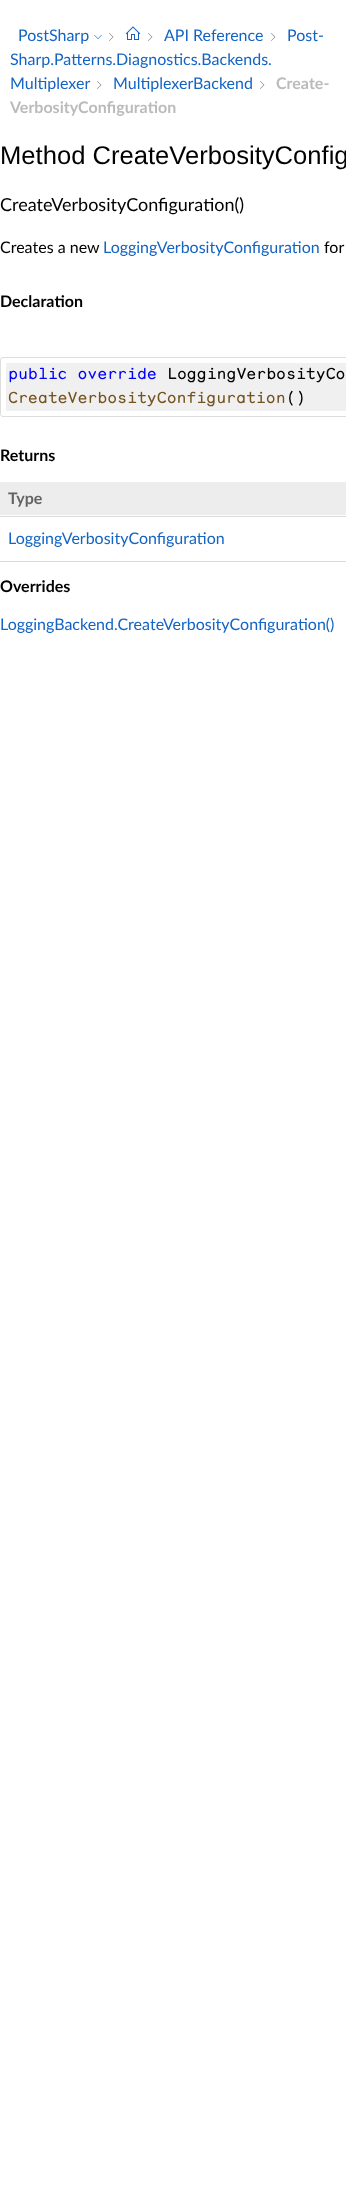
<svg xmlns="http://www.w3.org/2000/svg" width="346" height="2196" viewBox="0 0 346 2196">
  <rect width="100%" height="100%" fill="#ffffff"/>
  <text x="18" y="41" font-family="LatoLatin" font-size="16" fill="#1364c4">PostSharp</text>
  <image x="94" y="34" width="8" height="5" href="img1.png"/>
  <image x="109" y="33" width="5" height="8" href="img2.png"/>
  <image x="125" y="26" width="16" height="14" href="img3.png"/>
  <image x="148" y="33" width="5" height="8" href="img2.png"/>
  <text x="164" y="41" font-family="LatoLatin" font-size="16" fill="#1364c4">API Reference</text>
  <image x="271" y="33" width="5" height="8" href="img2.png"/>
  <text x="287" y="41" font-family="LatoLatin" font-size="16" fill="#1364c4">Post-</text>
  <text x="10" y="65" font-family="LatoLatin" font-size="16" fill="#1364c4">Sharp.Patterns.Diagnostics.Backends.</text>
  <text x="10" y="89" font-family="LatoLatin" font-size="16" fill="#1364c4">Multiplexer</text>
  <image x="97" y="81" width="5" height="8" href="img2.png"/>
  <text x="113" y="89" font-family="LatoLatin" font-size="16" fill="#1364c4">MultiplexerBackend</text>
  <image x="260" y="81" width="5" height="8" href="img2.png"/>
  <text x="276" y="89" font-family="LatoLatin" font-size="16" font-weight="bold" fill="#bbbbbb">Create-</text>
  <text x="10" y="113" font-family="LatoLatin" font-size="16" font-weight="bold" fill="#bbbbbb">VerbosityConfiguration</text>
  <text x="0" y="164" font-family="Liberation Sans" font-size="25.6" fill="#000000">Method CreateVerbosityConfig</text>
  <text x="0" y="211" font-family="LatoLatin" font-size="18" fill="#000000">CreateVerbosityConfiguration()</text>
  <text x="0" y="253" font-family="LatoLatin" font-size="16" fill="#000000">Creates a new</text>
  <text x="103" y="253" font-family="LatoLatin" font-size="16" fill="#1364c4">LoggingVerbosityConfiguration</text>
  <text x="324" y="253" font-family="LatoLatin" font-size="16" fill="#000000">for</text>
  <text x="0" y="307" font-family="LatoLatin" font-size="16" font-weight="bold" fill="#000000">Declaration</text>
  <rect x="0.5" y="357.5" width="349" height="59" rx="2.5" fill="none" stroke="#dddddd"/>
  <rect x="6" y="363" width="340" height="48" fill="#f0f0f0"/>
  <text x="8" y="379" font-family="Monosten" font-size="16" fill="#0000ff">public override</text>
  <text x="167" y="379" font-family="Monosten" font-size="16" fill="#000000">LoggingVerbosityCo</text>
  <text x="8" y="403" font-family="Monosten" font-size="16" fill="#74531f">CreateVerbosityConfiguration</text>
  <text x="286" y="403" font-family="Monosten" font-size="16" fill="#000000">()</text>
  <text x="0" y="461" font-family="LatoLatin" font-size="16" font-weight="bold" fill="#000000">Returns</text>
  <rect x="0" y="482" width="346" height="33" fill="#ededed"/>
  <rect x="0" y="516" width="346" height="1" fill="#dbdbdb"/>
  <text x="8" y="504" font-family="LatoLatin" font-size="16" font-weight="bold" fill="#636363">Type</text>
  <rect x="0" y="561" width="346" height="1" fill="#dbdbdb"/>
  <text x="8" y="544" font-family="LatoLatin" font-size="16" fill="#1364c4">LoggingVerbosityConfiguration</text>
  <text x="0" y="592" font-family="LatoLatin" font-size="16" font-weight="bold" fill="#000000">Overrides</text>
  <text x="0" y="630" font-family="LatoLatin" font-size="16" fill="#1364c4">LoggingBackend.CreateVerbosityConfiguration()</text>
</svg>
